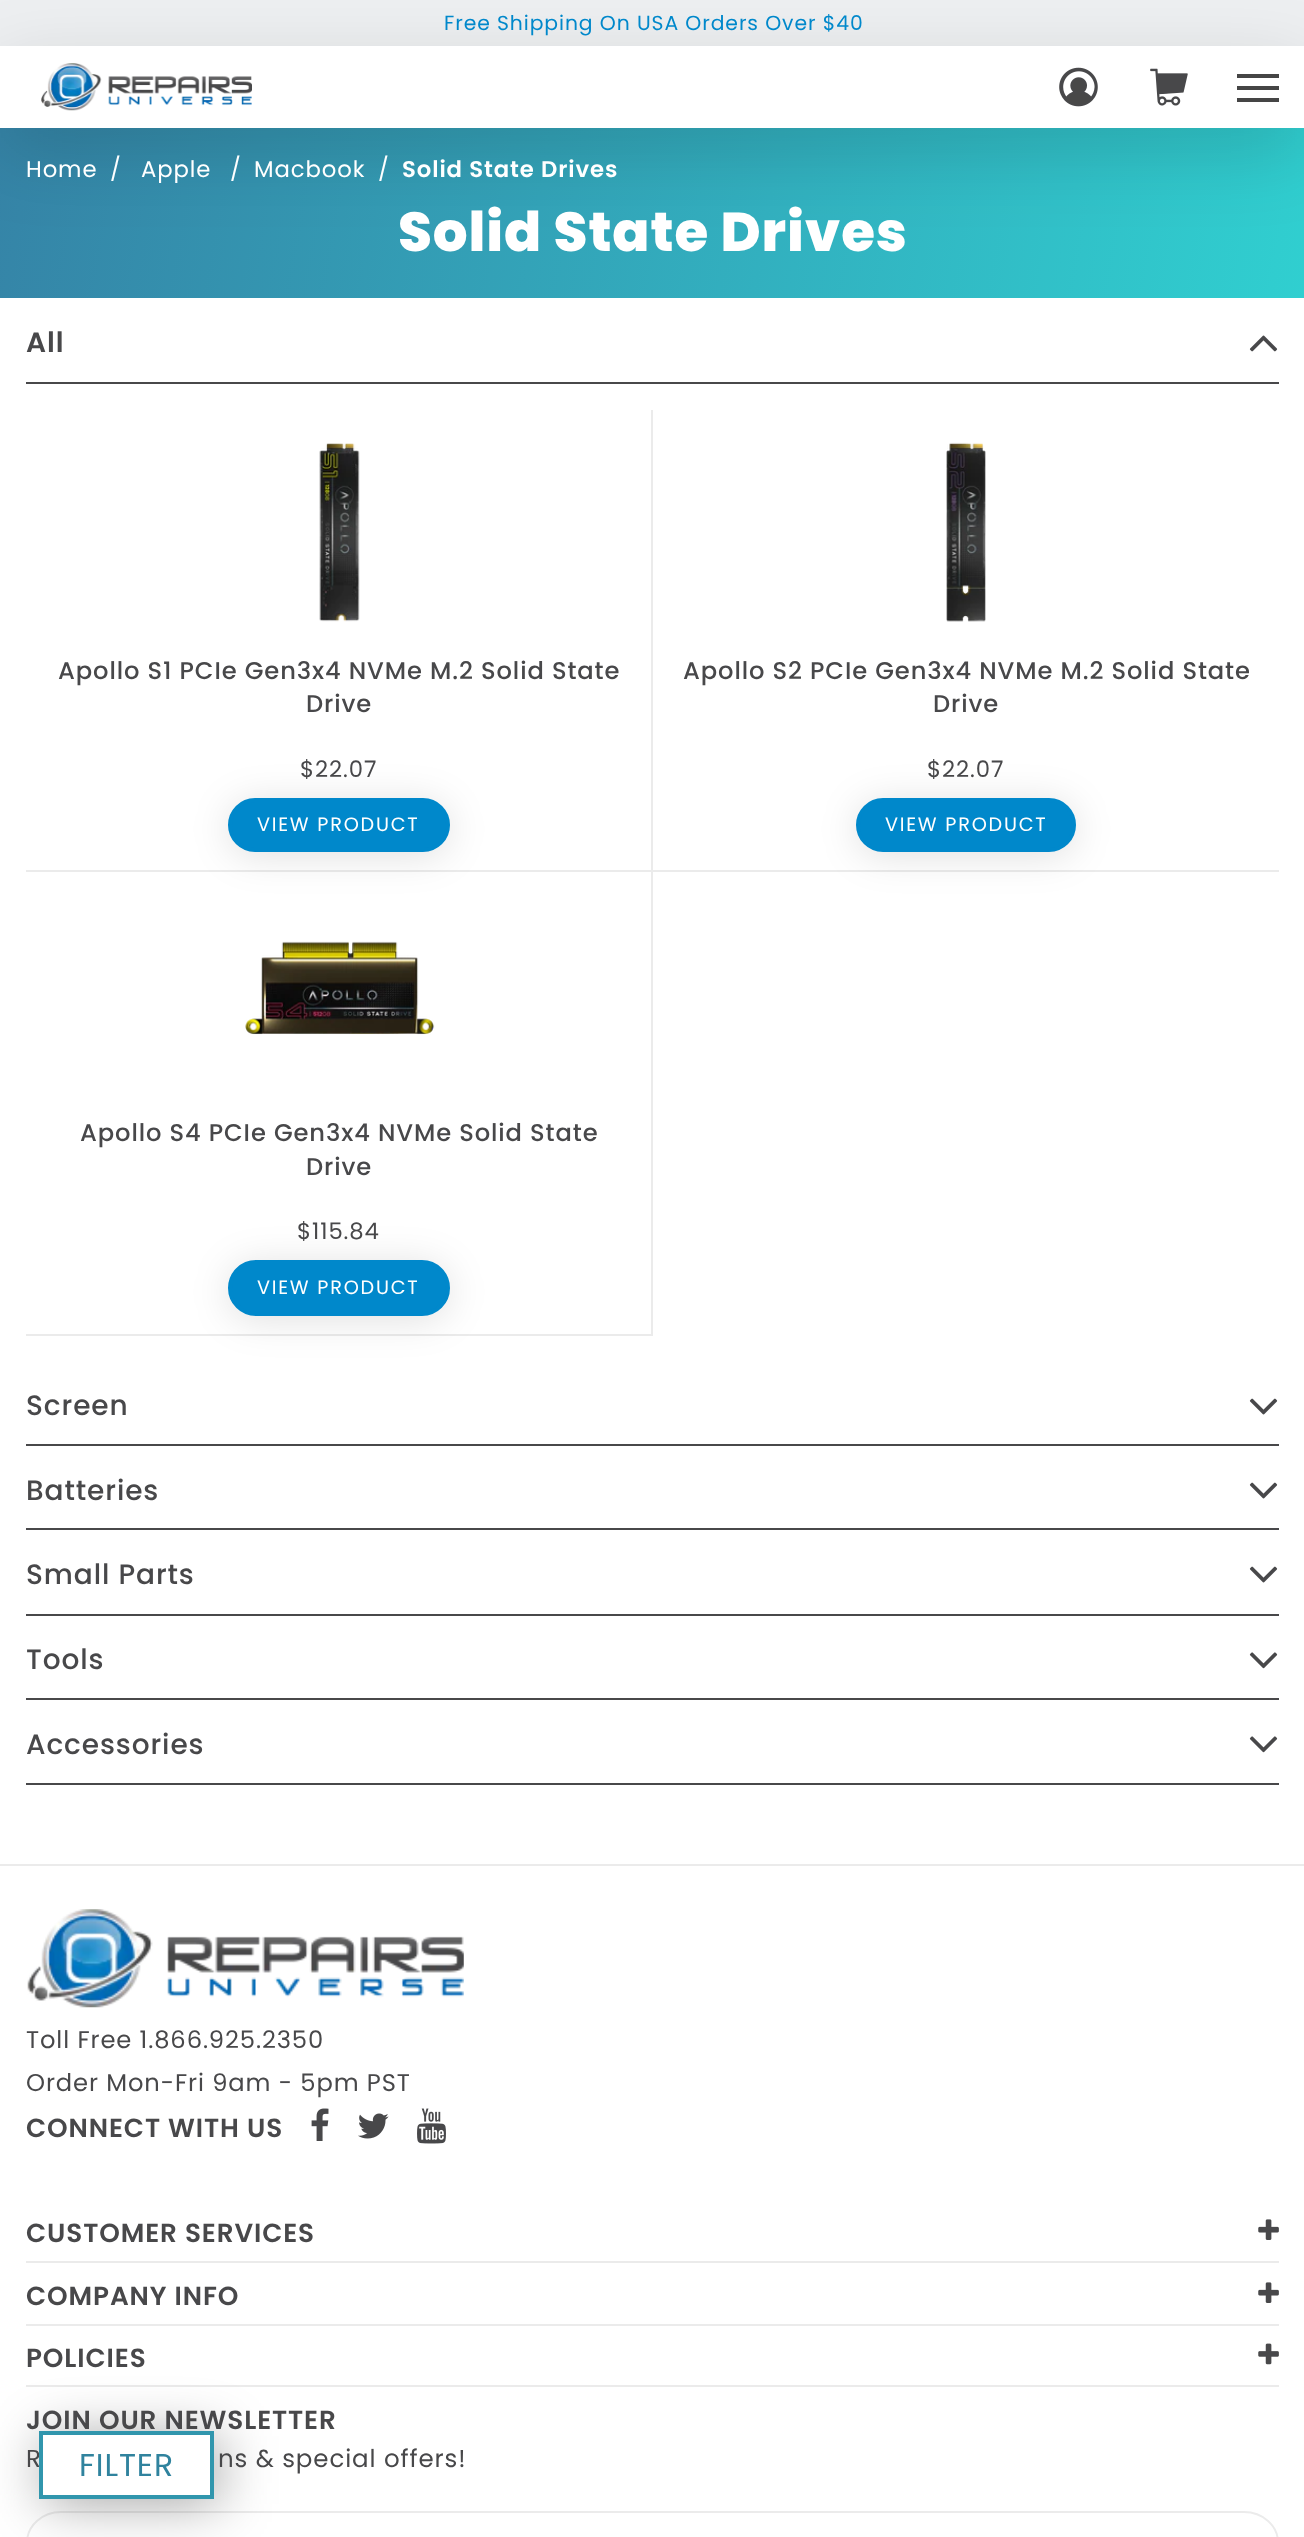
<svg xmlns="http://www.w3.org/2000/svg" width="1304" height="2537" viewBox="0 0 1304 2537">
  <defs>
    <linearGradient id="g1" gradientUnits="userSpaceOnUse" x1="5.2" y1="98" x2="1300" y2="327"><stop offset="0" stop-color="#3584a7"/><stop offset="1" stop-color="#30cfd0"/></linearGradient>
    <filter id="blur1" x="-50%" y="-200%" width="200%" height="500%"><feGaussianBlur stdDeviation="37"/></filter>
    <filter id="blur2" x="-50%" y="-200%" width="200%" height="500%"><feGaussianBlur stdDeviation="19"/></filter>
    <filter id="blur3" x="-50%" y="-200%" width="200%" height="500%"><feGaussianBlur stdDeviation="27"/></filter>
  </defs>
  <rect width="100%" height="100%" fill="#ffffff"/>
  <rect x="0" y="0" width="1304" height="46" fill="#edeff1"/>
  <rect x="0" y="128" width="1304" height="170" fill="url(#g1)"/>
  <rect x="0" y="70" width="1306" height="82" fill="#000000" fill-opacity="0.15" filter="url(#blur1)"/>
  <rect x="0" y="46" width="1304" height="82" fill="#ffffff"/>
  <image x="41" y="63" width="211" height="48" href="img1.png"/>
  <image x="1059" y="67" width="39" height="40" href="img2.png"/>
  <image x="1150" y="68" width="38" height="38" href="img3.png"/>
  <rect x="1237" y="86" width="42" height="4" fill="#454545"/>
  <rect x="1237" y="74" width="42" height="4" fill="#454545"/>
  <rect x="1237" y="98" width="42" height="4" fill="#454545"/>
  <text x="444" y="30" font-family="Poppins" font-size="20.35" letter-spacing="0.9" fill="#0088cb">Free Shipping On USA Orders Over $40</text>
  <text x="26" y="177" font-family="Poppins" font-size="22.75" letter-spacing="0.9" fill="#ffffff">Home</text>
  <text x="110" y="177" font-family="Poppins" font-size="22.75" letter-spacing="0.9" fill="#ffffff">/</text>
  <text x="141" y="177" font-family="Poppins" font-size="22.75" letter-spacing="0.9" fill="#ffffff">Apple</text>
  <text x="230" y="177" font-family="Poppins" font-size="22.75" letter-spacing="0.9" fill="#ffffff">/</text>
  <text x="254" y="177" font-family="Poppins" font-size="22.75" letter-spacing="0.9" fill="#ffffff">Macbook</text>
  <text x="378" y="177" font-family="Poppins" font-size="22.75" letter-spacing="0.9" fill="#ffffff">/</text>
  <text x="402" y="177" font-family="Poppins" font-size="22.75" font-weight="600" letter-spacing="0.9" fill="#ffffff">Solid State Drives</text>
  <text x="398" y="251" font-family="Poppins" font-size="54.75" font-weight="800" letter-spacing="0.9" fill="#ffffff">Solid State Drives</text>
  <rect x="26" y="382" width="1253" height="2" fill="#48484a"/>
  <text x="26" y="352" font-family="Poppins" font-size="28" font-weight="600" letter-spacing="0.9" fill="#48484a">All</text>
  <image x="1249" y="335" width="29" height="17" href="img4.png"/>
  <rect x="651" y="410" width="2" height="925" fill="#ebebeb"/>
  <rect x="26" y="870" width="1253" height="2" fill="#ebebeb"/>
  <image x="319" y="443" width="41" height="179" href="img5.png"/>
  <text x="58" y="679" font-family="Poppins" font-size="24.2" font-weight="500" letter-spacing="0.9" fill="#48484a">Apollo S1 PCIe Gen3x4 NVMe M.2 Solid State</text>
  <text x="306" y="712" font-family="Poppins" font-size="24.2" font-weight="500" letter-spacing="0.9" fill="#48484a">Drive</text>
  <text x="300" y="777" font-family="Poppins" font-size="22.75" letter-spacing="0.9" fill="#48484a">$22.07</text>
  <rect x="228" y="802" width="222" height="54" rx="27" fill="#000000" fill-opacity="0.12" filter="url(#blur2)"/>
  <rect x="230" y="800" width="218" height="50" rx="25" fill="#0088cb" stroke="#0088cb" stroke-width="4"/>
  <text x="257" y="831" font-family="Poppins" font-size="19.25" letter-spacing="1.75" fill="#ffffff">VIEW PRODUCT</text>
  <image x="946" y="442" width="40" height="180" href="img6.png"/>
  <text x="683" y="679" font-family="Poppins" font-size="24.2" font-weight="500" letter-spacing="0.9" fill="#48484a">Apollo S2 PCIe Gen3x4 NVMe M.2 Solid State</text>
  <text x="933" y="712" font-family="Poppins" font-size="24.2" font-weight="500" letter-spacing="0.9" fill="#48484a">Drive</text>
  <text x="927" y="777" font-family="Poppins" font-size="22.75" letter-spacing="0.9" fill="#48484a">$22.07</text>
  <rect x="856" y="802" width="220" height="54" rx="27" fill="#000000" fill-opacity="0.12" filter="url(#blur2)"/>
  <rect x="858" y="800" width="216" height="50" rx="25" fill="#0088cb" stroke="#0088cb" stroke-width="4"/>
  <text x="885" y="831" font-family="Poppins" font-size="19.25" letter-spacing="1.75" fill="#ffffff">VIEW PRODUCT</text>
  <rect x="26" y="1334" width="627" height="2" fill="#ebebeb"/>
  <image x="245" y="941" width="190" height="94" href="img7.png"/>
  <text x="80" y="1141" font-family="Poppins" font-size="24.2" font-weight="500" letter-spacing="0.9" fill="#48484a">Apollo S4 PCIe Gen3x4 NVMe Solid State</text>
  <text x="306" y="1175" font-family="Poppins" font-size="24.2" font-weight="500" letter-spacing="0.9" fill="#48484a">Drive</text>
  <text x="297" y="1239" font-family="Poppins" font-size="22.75" letter-spacing="0.9" fill="#48484a">$115.84</text>
  <rect x="228" y="1264" width="222" height="56" rx="28" fill="#000000" fill-opacity="0.12" filter="url(#blur2)"/>
  <rect x="230" y="1262" width="218" height="52" rx="26" fill="#0088cb" stroke="#0088cb" stroke-width="4"/>
  <text x="257" y="1294" font-family="Poppins" font-size="19.25" letter-spacing="1.75" fill="#ffffff">VIEW PRODUCT</text>
  <rect x="26" y="1444" width="1253" height="2" fill="#48484a"/>
  <text x="26" y="1415" font-family="Poppins" font-size="28" font-weight="500" letter-spacing="0.9" fill="#48484a">Screen</text>
  <image x="1249" y="1398" width="29" height="17" href="img8.png"/>
  <rect x="26" y="1528" width="1253" height="2" fill="#48484a"/>
  <text x="26" y="1500" font-family="Poppins" font-size="28" font-weight="500" letter-spacing="0.9" fill="#48484a">Batteries</text>
  <image x="1249" y="1482" width="29" height="17" href="img8.png"/>
  <rect x="26" y="1614" width="1253" height="2" fill="#48484a"/>
  <text x="26" y="1584" font-family="Poppins" font-size="28" font-weight="500" letter-spacing="0.9" fill="#48484a">Small Parts</text>
  <image x="1249" y="1566" width="29" height="17" href="img8.png"/>
  <rect x="26" y="1698" width="1253" height="2" fill="#48484a"/>
  <text x="26" y="1669" font-family="Poppins" font-size="28" font-weight="500" letter-spacing="0.9" fill="#48484a">Tools</text>
  <image x="1249" y="1652" width="29" height="17" href="img9.png"/>
  <rect x="26" y="1783" width="1253" height="2" fill="#48484a"/>
  <text x="26" y="1754" font-family="Poppins" font-size="28" font-weight="500" letter-spacing="0.9" fill="#48484a">Accessories</text>
  <image x="1249" y="1736" width="29" height="17" href="img9.png"/>
  <rect x="26" y="2385" width="1253" height="2" fill="#ebebeb"/>
  <rect x="27" y="2512" width="1251" height="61" rx="34" fill="none" stroke="#ebebeb" stroke-width="2"/>
  <rect x="44" y="2436" width="175" height="68" fill="#000000" fill-opacity="0.35" filter="url(#blur3)"/>
  <text x="26" y="2467" font-family="Poppins" font-size="24.5" letter-spacing="0.9" fill="#48484a">R</text>
  <rect x="41" y="2433" width="171" height="64" fill="#ffffff" stroke="#3196ad" stroke-width="4"/>
  <text x="79" y="2476" font-family="Poppins" font-size="31.5" letter-spacing="0.9" fill="#30839e">FILTER</text>
  <rect x="0" y="1864" width="1304" height="2" fill="#ebebeb"/>
  <image x="27" y="1909" width="437" height="99" href="img10.png"/>
  <text x="26" y="2048" font-family="Poppins" font-size="24.2" letter-spacing="0.9" fill="#48484a">Toll Free 1.866.925.2350</text>
  <text x="26" y="2091" font-family="Poppins" font-size="24.2" letter-spacing="0.9" fill="#48484a">Order Mon-Fri 9am - 5pm PST</text>
  <text x="26" y="2137" font-family="Poppins" font-size="26.25" font-weight="600" letter-spacing="0.9" fill="#48484a">CONNECT WITH US</text>
  <image x="311" y="2108" width="18" height="33" href="img11.png"/>
  <image x="358" y="2113" width="31" height="26" href="img12.png"/>
  <image x="417" y="2108" width="29" height="36" href="img13.png"/>
  <rect x="26" y="2261" width="1253" height="2" fill="#ebebeb"/>
  <text x="26" y="2242" font-family="Poppins" font-size="26.25" font-weight="600" letter-spacing="0.9" fill="#48484a">CUSTOMER SERVICES</text>
  <image x="1258" y="2219" width="21" height="21" href="img14.png"/>
  <rect x="26" y="2324" width="1253" height="2" fill="#ebebeb"/>
  <text x="26" y="2305" font-family="Poppins" font-size="26.25" font-weight="600" letter-spacing="0.9" fill="#48484a">COMPANY INFO</text>
  <image x="1258" y="2282" width="21" height="21" href="img14.png"/>
  <text x="26" y="2367" font-family="Poppins" font-size="26.25" font-weight="600" letter-spacing="0.9" fill="#48484a">POLICIES</text>
  <image x="1258" y="2343" width="21" height="22" href="img15.png"/>
  <text x="26" y="2429" font-family="Poppins" font-size="26.25" font-weight="600" letter-spacing="0.9" fill="#48484a">JOIN OUR NEWSLETTER</text>
  <text x="218" y="2467" font-family="Poppins" font-size="24.5" letter-spacing="0.9" fill="#48484a">ns &amp; special offers!</text>
</svg>
